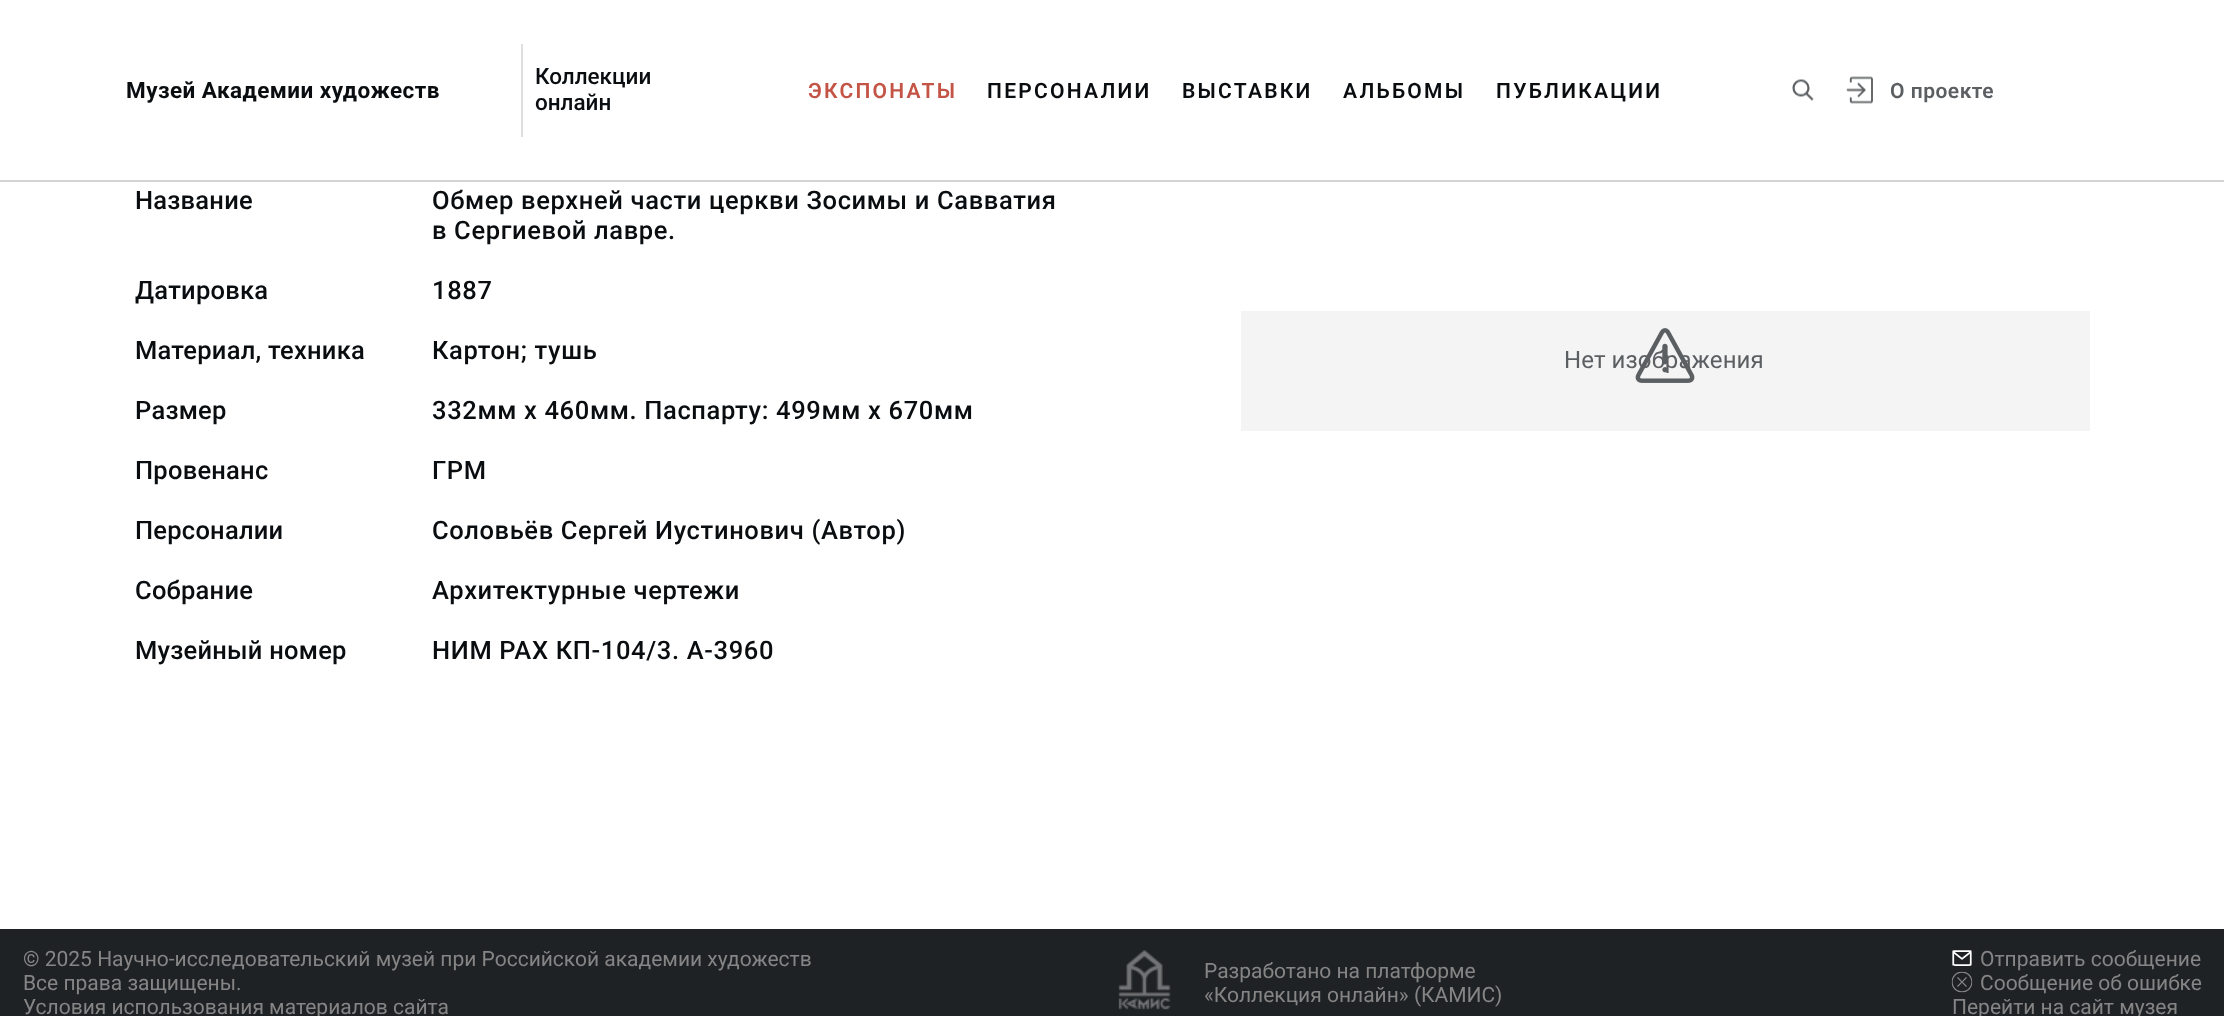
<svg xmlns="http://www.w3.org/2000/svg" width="2224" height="1016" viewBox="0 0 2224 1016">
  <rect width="100%" height="100%" fill="#ffffff"/>
  <rect x="0" y="180" width="2224" height="2" fill="#d3d3d3"/>
  <text x="126" y="98" font-family="Roboto" font-size="22.5" font-weight="bold" letter-spacing="0.45" fill="#0a0d10">Музей Академии художеств</text>
  <rect x="521" y="44" width="2" height="93" fill="#dedede"/>
  <text x="535" y="84" font-family="Roboto" font-size="22.5" font-weight="500" fill="#0a0d10">Коллекции</text>
  <text x="535" y="110" font-family="Roboto" font-size="22.5" font-weight="500" fill="#0a0d10">онлайн</text>
  <text x="808" y="98" font-family="Roboto" font-size="21" font-weight="600" letter-spacing="2.25" fill="#c35446">ЭКСПОНАТЫ</text>
  <text x="987" y="98" font-family="Roboto" font-size="21" font-weight="600" letter-spacing="2.25" fill="#0a0d10">ПЕРСОНАЛИИ</text>
  <text x="1182" y="98" font-family="Roboto" font-size="21" font-weight="600" letter-spacing="2.25" fill="#0a0d10">ВЫСТАВКИ</text>
  <text x="1343" y="98" font-family="Roboto" font-size="21" font-weight="600" letter-spacing="2.25" fill="#0a0d10">АЛЬБОМЫ</text>
  <text x="1496" y="98" font-family="Roboto" font-size="21" font-weight="600" letter-spacing="2.25" fill="#0a0d10">ПУБЛИКАЦИИ</text>
  <image x="1792" y="79" width="22" height="22" href="img1.png"/>
  <image x="1846" y="76" width="27" height="28" href="img2.png"/>
  <text x="1890" y="98" font-family="Roboto" font-size="21" font-weight="600" letter-spacing="0.5" fill="#5c5f62">О проекте</text>
  <text x="135" y="209" font-family="Roboto" font-size="25.5" font-weight="500" letter-spacing="0.25" fill="#0a0d10">Название</text>
  <text x="432" y="209" font-family="Roboto" font-size="25.5" font-weight="500" letter-spacing="0.65" fill="#0a0d10">Обмер верхней части церкви Зосимы и Савватия</text>
  <text x="432" y="239" font-family="Roboto" font-size="25.5" font-weight="500" letter-spacing="0.65" fill="#0a0d10">в Сергиевой лавре.</text>
  <text x="135" y="299" font-family="Roboto" font-size="25.5" font-weight="500" letter-spacing="0.25" fill="#0a0d10">Датировка</text>
  <text x="432" y="299" font-family="Roboto" font-size="25.5" font-weight="500" letter-spacing="0.65" fill="#0a0d10">1887</text>
  <text x="135" y="359" font-family="Roboto" font-size="25.5" font-weight="500" letter-spacing="0.25" fill="#0a0d10">Материал, техника</text>
  <text x="432" y="359" font-family="Roboto" font-size="25.5" font-weight="500" letter-spacing="0.65" fill="#0a0d10">Картон; тушь</text>
  <text x="135" y="419" font-family="Roboto" font-size="25.5" font-weight="500" letter-spacing="0.25" fill="#0a0d10">Размер</text>
  <text x="432" y="419" font-family="Roboto" font-size="25.5" font-weight="500" letter-spacing="0.65" fill="#0a0d10">332мм х 460мм. Паспарту: 499мм х 670мм</text>
  <text x="135" y="479" font-family="Roboto" font-size="25.5" font-weight="500" letter-spacing="0.25" fill="#0a0d10">Провенанс</text>
  <text x="432" y="479" font-family="Roboto" font-size="25.5" font-weight="500" letter-spacing="0.65" fill="#0a0d10">ГРМ</text>
  <text x="135" y="539" font-family="Roboto" font-size="25.5" font-weight="500" letter-spacing="0.25" fill="#0a0d10">Персоналии</text>
  <text x="432" y="539" font-family="Roboto" font-size="25.5" font-weight="500" letter-spacing="0.65" fill="#0a0d10">Соловьёв Сергей Иустинович (Автор)</text>
  <text x="135" y="599" font-family="Roboto" font-size="25.5" font-weight="500" letter-spacing="0.25" fill="#0a0d10">Собрание</text>
  <text x="432" y="599" font-family="Roboto" font-size="25.5" font-weight="500" letter-spacing="0.65" fill="#0a0d10">Архитектурные чертежи</text>
  <text x="135" y="659" font-family="Roboto" font-size="25.5" font-weight="500" letter-spacing="0.25" fill="#0a0d10">Музейный номер</text>
  <text x="432" y="659" font-family="Roboto" font-size="25.5" font-weight="500" letter-spacing="0.65" fill="#0a0d10">НИМ РАХ КП-104/3. А-3960</text>
  <rect x="1241" y="311" width="849" height="120" fill="#f4f4f5"/>
  <text x="1564" y="368" font-family="Roboto" font-size="24" letter-spacing="0.1" fill="#5c5f62">Нет изображения</text>
  <image x="1635" y="328" width="60" height="55" href="img3.png"/>
  <rect x="0" y="929" width="2224" height="87" fill="#1f2224"/>
  <text x="23" y="966" font-family="Roboto" font-size="21" fill="#858585">© 2025 Научно-исследовательский музей при Российской академии художеств</text>
  <text x="23" y="990" font-family="Roboto" font-size="21" fill="#858585">Все права защищены.</text>
  <text x="23" y="1014" font-family="Roboto" font-size="21" fill="#858585">Условия использования материалов сайта</text>
  <image x="1118" y="950" width="53" height="60" href="img4.png"/>
  <text x="1204" y="978" font-family="Roboto" font-size="21" fill="#858585">Разработано на платформе</text>
  <text x="1204" y="1002" font-family="Roboto" font-size="21" fill="#858585">«Коллекция онлайн» (КАМИС)</text>
  <image x="1952" y="950" width="20" height="16" href="img5.png"/>
  <text x="1980" y="966" font-family="Roboto" font-size="21" fill="#858585">Отправить сообщение</text>
  <image x="1951" y="971" width="22" height="22" href="img6.png"/>
  <text x="1980" y="990" font-family="Roboto" font-size="21" fill="#858585">Сообщение об ошибке</text>
  <text x="1952" y="1014" font-family="Roboto" font-size="21" fill="#858585">Перейти на сайт музея</text>
</svg>
